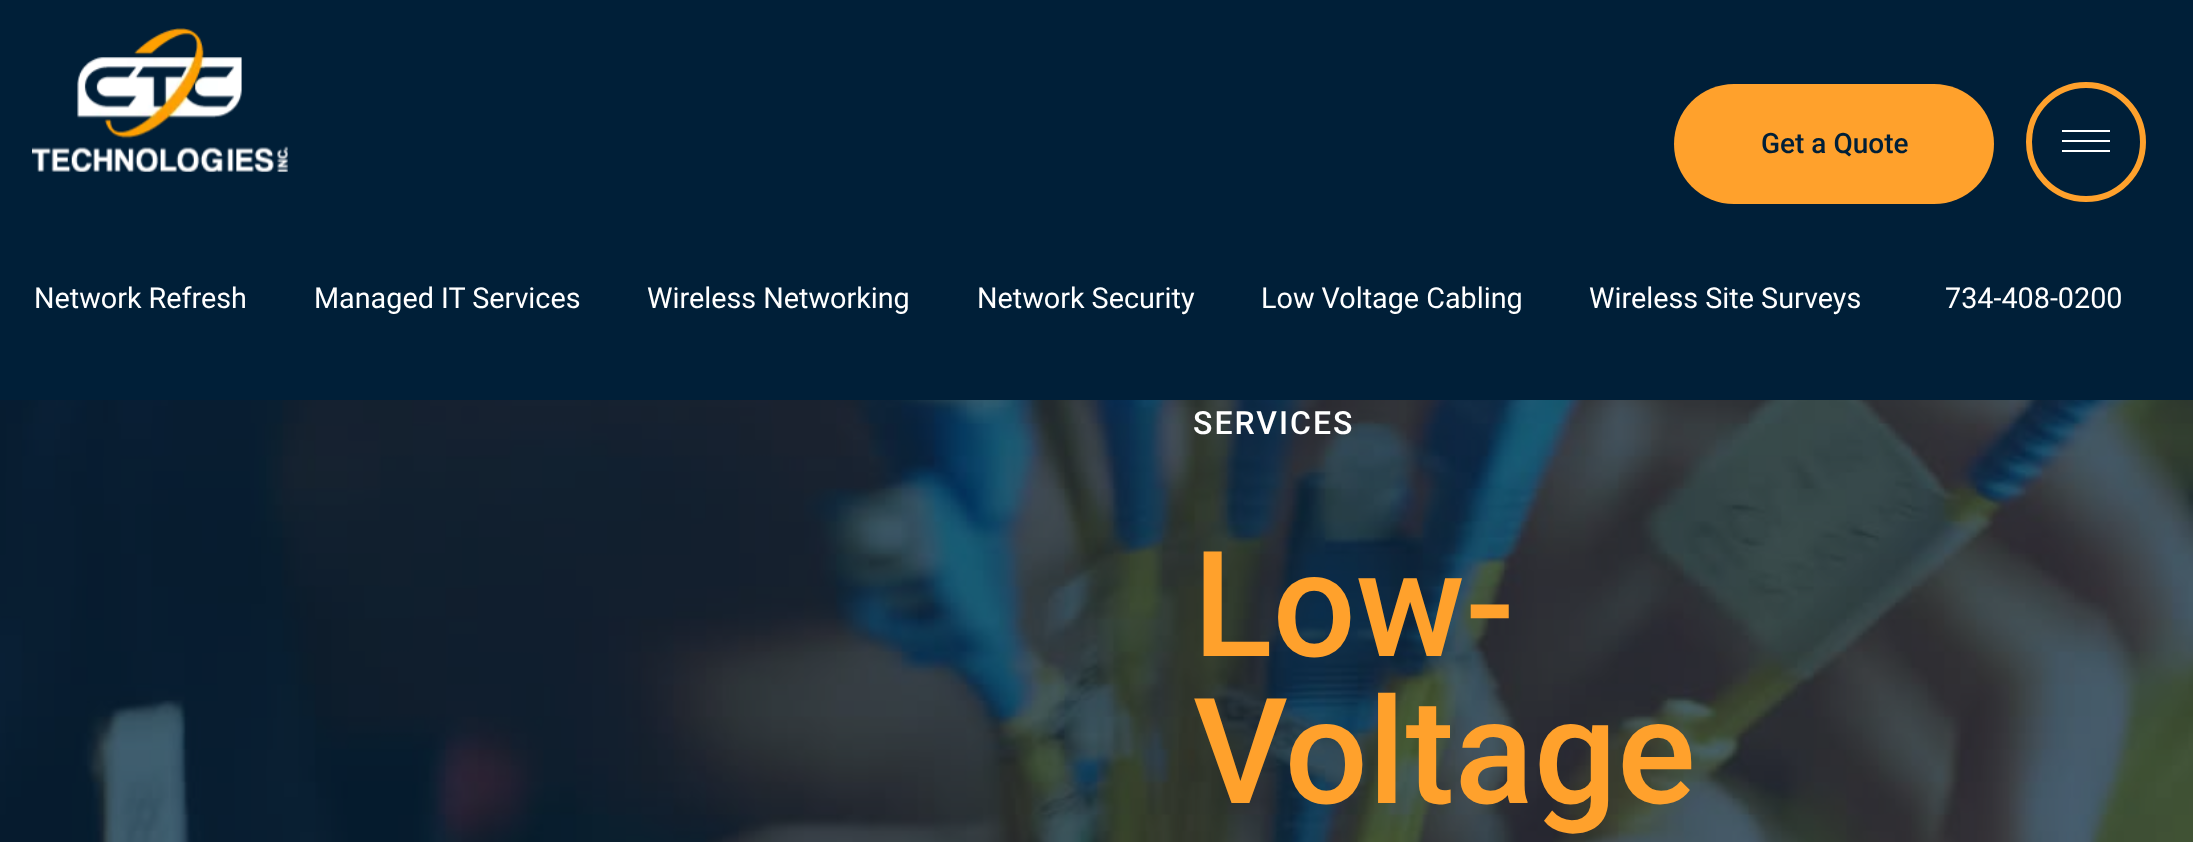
<svg xmlns="http://www.w3.org/2000/svg" width="2193" height="842" viewBox="0 0 2193 842">
  <rect width="100%" height="100%" fill="#001f38"/>
  <image x="32" y="28" width="256" height="144" href="img1.png"/>
  <circle cx="2086" cy="142" r="57" fill="none" stroke="#ffa12c" stroke-width="6"/>
  <rect x="2062" y="130" width="48" height="2" fill="#ffffff"/>
  <rect x="2062" y="140" width="48" height="2" fill="#ffffff"/>
  <rect x="2062" y="150" width="48" height="2" fill="#ffffff"/>
  <rect x="1674" y="84" width="320" height="120" rx="60" fill="#ffa12c"/>
  <text x="1761" y="153" font-family="Roboto" font-size="28" font-weight="500" fill="#001f38">Get a Quote</text>
  <text x="34" y="308" font-family="Roboto" font-size="28.75" fill="#ffffff">Network Refresh</text>
  <text x="314" y="308" font-family="Roboto" font-size="28.75" fill="#ffffff">Managed IT Services</text>
  <text x="647" y="308" font-family="Roboto" font-size="28.75" fill="#ffffff">Wireless Networking</text>
  <text x="977" y="308" font-family="Roboto" font-size="28.75" fill="#ffffff">Network Security</text>
  <text x="1261" y="308" font-family="Roboto" font-size="28.75" fill="#ffffff">Low Voltage Cabling</text>
  <text x="1589" y="308" font-family="Roboto" font-size="28.75" fill="#ffffff">Wireless Site Surveys</text>
  <text x="1945" y="308" font-family="Roboto" font-size="28.75" fill="#ffffff">734-408-0200</text>
  <image x="0" y="400" width="2193" height="442" href="img2.png"/>
  <text x="1193" y="434" font-family="Roboto" font-size="32" font-weight="500" letter-spacing="2" fill="#ffffff">SERVICES</text>
  <text x="1193" y="656" font-family="Roboto" font-size="147" font-weight="500" fill="#ffa12c">Low-</text>
  <text x="1193" y="803" font-family="Roboto" font-size="147" font-weight="500" fill="#ffa12c">Voltage</text>
</svg>
